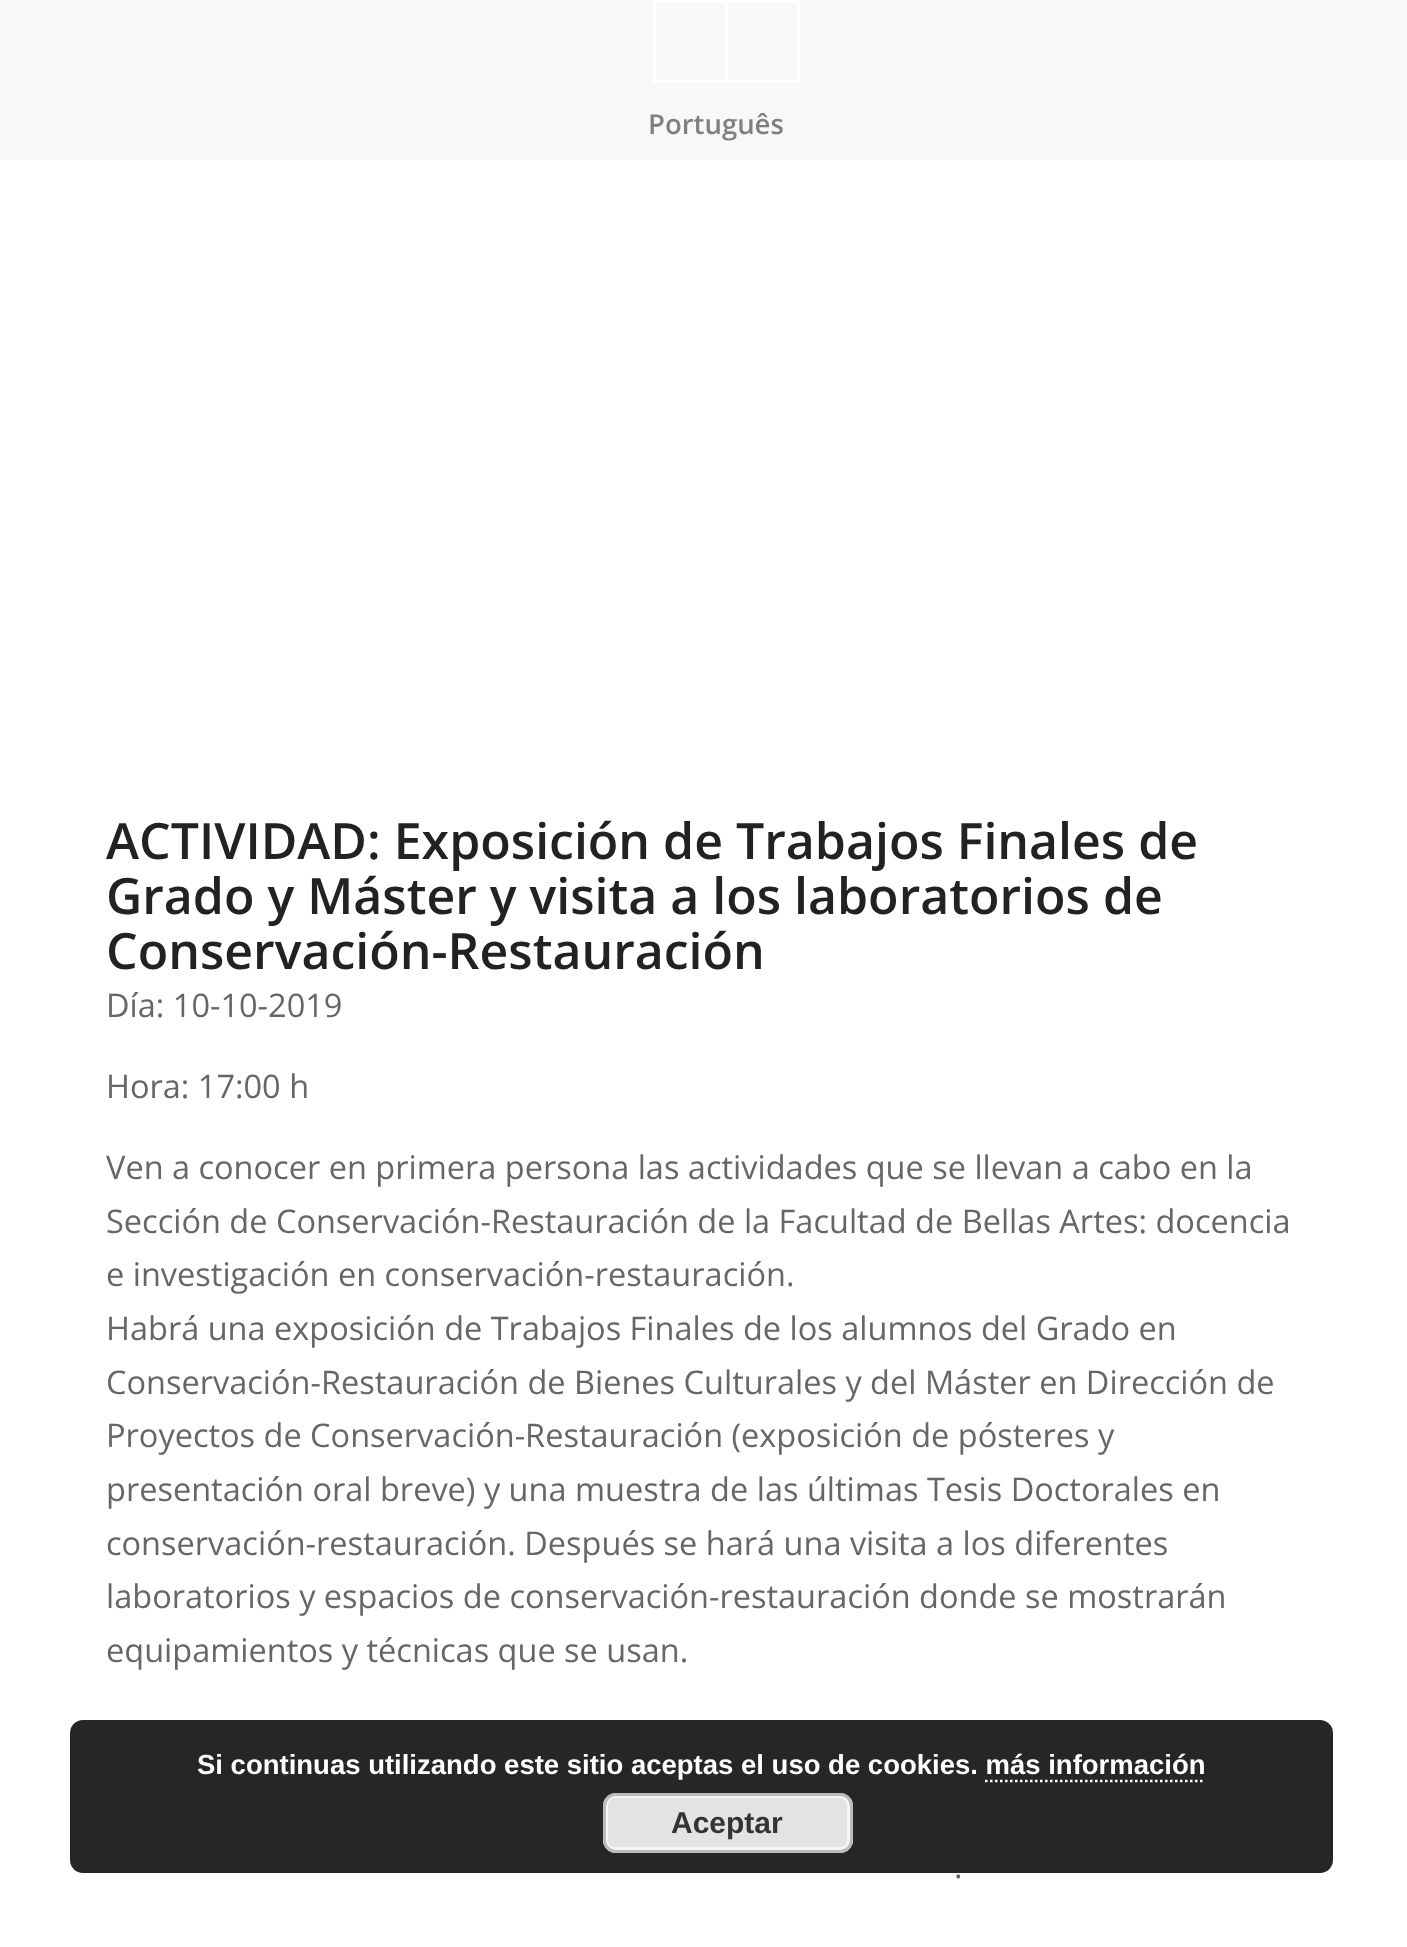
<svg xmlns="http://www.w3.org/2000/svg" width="1407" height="1947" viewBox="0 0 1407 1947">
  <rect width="100%" height="100%" fill="#ffffff"/>
  <rect x="0" y="0" width="1407" height="160" fill="#f8f8f8"/>
  <rect x="654.5" y="1.5" width="72" height="80" fill="none" stroke="#ffffff" stroke-width="3"/>
  <rect x="726.5" y="1.5" width="72" height="80" fill="none" stroke="#ffffff" stroke-width="3"/>
  <text x="648" y="134" font-family="Open Sans" font-size="27.5" font-weight="600" fill="#808080">Português</text>
  <text x="106" y="859" font-family="Open Sans" font-size="50" font-weight="600" fill="#222222">ACTIVIDAD: Exposición de Trabajos Finales de</text>
  <text x="106" y="914" font-family="Open Sans" font-size="50" font-weight="600" fill="#222222">Grado y Máster y visita a los laboratorios de</text>
  <text x="106" y="969" font-family="Open Sans" font-size="50" font-weight="600" fill="#222222">Conservación-Restauración</text>
  <text x="106" y="1017" font-family="Open Sans" font-size="32.5" fill="#666666">Día: 10-10-2019</text>
  <text x="106" y="1098" font-family="Open Sans" font-size="32.5" fill="#666666">Hora: 17:00 h</text>
  <text x="106" y="1179" font-family="Open Sans" font-size="32.5" fill="#666666">Ven a conocer en primera persona las actividades que se llevan a cabo en la</text>
  <text x="106" y="1233" font-family="Open Sans" font-size="32.5" fill="#666666">Sección de Conservación-Restauración de la Facultad de Bellas Artes: docencia</text>
  <text x="106" y="1286" font-family="Open Sans" font-size="32.5" fill="#666666">e investigación en conservación-restauración.</text>
  <text x="106" y="1340" font-family="Open Sans" font-size="32.5" fill="#666666">Habrá una exposición de Trabajos Finales de los alumnos del Grado en</text>
  <text x="106" y="1394" font-family="Open Sans" font-size="32.5" fill="#666666">Conservación-Restauración de Bienes Culturales y del Máster en Dirección de</text>
  <text x="106" y="1447" font-family="Open Sans" font-size="32.5" fill="#666666">Proyectos de Conservación-Restauración (exposición de pósteres y</text>
  <text x="106" y="1501" font-family="Open Sans" font-size="32.5" fill="#666666">presentación oral breve) y una muestra de las últimas Tesis Doctorales en</text>
  <text x="106" y="1555" font-family="Open Sans" font-size="32.5" fill="#666666">conservación-restauración. Después se hará una visita a los diferentes</text>
  <text x="106" y="1608" font-family="Open Sans" font-size="32.5" fill="#666666">laboratorios y espacios de conservación-restauración donde se mostrarán</text>
  <text x="106" y="1662" font-family="Open Sans" font-size="32.5" fill="#666666">equipamientos y técnicas que se usan.</text>
  <text x="954" y="1878" font-family="Open Sans" font-size="32.5" fill="#666666">.</text>
  <rect x="70" y="1720" width="1263" height="153" rx="13" fill="#000000" fill-opacity="0.85"/>
  <text x="197" y="1774" font-family="Liberation Sans" font-size="27.5" font-weight="bold" fill="#ffffff">Si continuas utilizando este sitio aceptas el uso de cookies. más información</text>
  <path d="M985 1781H1205" fill="none" stroke="#ffffff" stroke-width="2.5" stroke-dasharray="2.5 2.5"/>
  <rect x="603" y="1793" width="250" height="60" rx="13" fill="#e3e3e3"/>
  <rect x="606.5" y="1796.5" width="242" height="52" rx="8.5" fill="none" stroke="#f6f6f6" stroke-width="3"/>
  <rect x="604.5" y="1794.5" width="247" height="57" rx="11.5" fill="none" stroke="#bbbbbb" stroke-width="3"/>
  <text x="671" y="1833" font-family="Liberation Sans" font-size="30" font-weight="bold" fill="#333333">Aceptar</text>
</svg>
